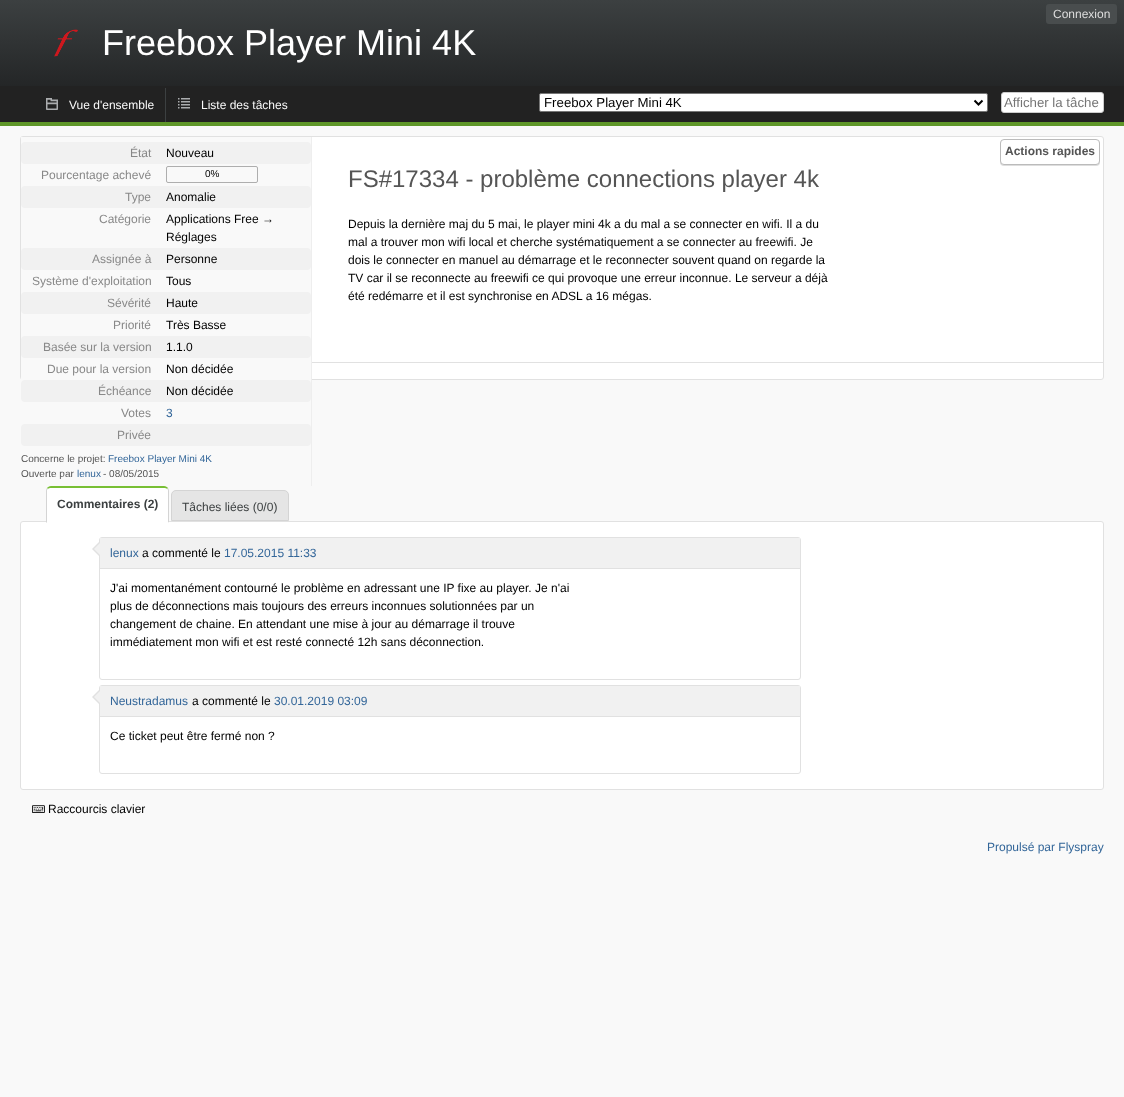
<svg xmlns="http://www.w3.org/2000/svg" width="1124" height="1097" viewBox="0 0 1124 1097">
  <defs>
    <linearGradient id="g1" gradientUnits="userSpaceOnUse" x1="562" y1="0" x2="562" y2="86"><stop offset="0" stop-color="#3c4041"/><stop offset="1" stop-color="#242627"/></linearGradient>
    <filter id="blur1" x="-50%" y="-200%" width="200%" height="500%"><feGaussianBlur stdDeviation="0.5"/></filter>
  </defs>
  <rect width="100%" height="100%" fill="#f9f9f9"/>
  <rect x="0" y="0" width="1124" height="86" fill="url(#g1)"/>
  <rect x="1046" y="4" width="71" height="20" rx="3" fill="#494d4e"/>
  <text x="1053" y="18" font-family="Liberation Sans" font-size="12" fill="#dddddd">Connexion</text>
  <image x="54" y="29" width="24" height="28" href="img1.png"/>
  <text x="102" y="55" font-family="Liberation Sans" font-size="36" fill="#ffffff">Freebox Player Mini 4K</text>
  <rect x="0" y="86" width="1124" height="36" fill="#222222"/>
  <rect x="0" y="122" width="1124" height="4" fill="#5f9729"/>
  <image x="46" y="98" width="12" height="12" href="img2.png"/>
  <text x="69" y="109" font-family="Liberation Sans" font-size="12" fill="#f9f9f9">Vue d'ensemble</text>
  <image x="178" y="98" width="12" height="11" href="img3.png"/>
  <rect x="165" y="88" width="1" height="34" fill="#3c4041"/>
  <text x="201" y="109" font-family="Liberation Sans" font-size="12" fill="#f9f9f9">Liste des tâches</text>
  <rect x="539.5" y="93.5" width="448" height="18" rx="1.5" fill="#ffffff" stroke="#767676"/>
  <path d="M974.5 100.5L978.5 104.5L982.5 100.5" fill="none" stroke="#000000" stroke-width="2"/>
  <text x="544" y="107" font-family="Liberation Sans" font-size="13.25" fill="#000000">Freebox Player Mini 4K</text>
  <rect x="1001.5" y="92.5" width="102" height="20" rx="2.5" fill="#ffffff" stroke="#cccccc"/>
  <text x="1004" y="107" font-family="Liberation Sans" font-size="13.25" fill="#757575">Afficher la tâche</text>
  <rect x="20.5" y="136.5" width="1083" height="243" rx="2.5" fill="#ffffff" stroke="#e1e1e1"/>
  <rect x="21" y="137" width="290" height="243" fill="#f9f9f9"/>
  <rect x="311" y="137" width="1" height="349" fill="#eeeeee"/>
  <rect x="21" y="142" width="290" height="22" rx="4" fill="#f1f1f1"/>
  <text x="130" y="157" font-family="Liberation Sans" font-size="12" fill="#888888">État</text>
  <text x="166" y="157" font-family="Liberation Sans" font-size="12" fill="#000000">Nouveau</text>
  <text x="41" y="179" font-family="Liberation Sans" font-size="12" fill="#888888">Pourcentage achevé</text>
  <rect x="166.5" y="166.5" width="91" height="16" rx="1.5" fill="none" stroke="#aeaeae"/>
  <text x="205" y="177" font-family="Liberation Sans" font-size="10" fill="#000000">0%</text>
  <rect x="21" y="186" width="290" height="22" rx="4" fill="#f1f1f1"/>
  <text x="125" y="201" font-family="Liberation Sans" font-size="12" fill="#888888">Type</text>
  <text x="166" y="201" font-family="Liberation Sans" font-size="12" fill="#000000">Anomalie</text>
  <text x="99" y="223" font-family="Liberation Sans" font-size="12" fill="#888888">Catégorie</text>
  <text x="166" y="223" font-family="Liberation Sans" font-size="12" fill="#000000">Applications Free →</text>
  <text x="166" y="241" font-family="Liberation Sans" font-size="12" fill="#000000">Réglages</text>
  <rect x="21" y="248" width="290" height="22" rx="4" fill="#f1f1f1"/>
  <text x="92" y="263" font-family="Liberation Sans" font-size="12" fill="#888888">Assignée à</text>
  <text x="166" y="263" font-family="Liberation Sans" font-size="12" fill="#000000">Personne</text>
  <text x="32" y="285" font-family="Liberation Sans" font-size="12" fill="#888888">Système d'exploitation</text>
  <text x="166" y="285" font-family="Liberation Sans" font-size="12" fill="#000000">Tous</text>
  <rect x="21" y="292" width="290" height="22" rx="4" fill="#f1f1f1"/>
  <text x="107" y="307" font-family="Liberation Sans" font-size="12" fill="#888888">Sévérité</text>
  <text x="166" y="307" font-family="Liberation Sans" font-size="12" fill="#000000">Haute</text>
  <text x="113" y="329" font-family="Liberation Sans" font-size="12" fill="#888888">Priorité</text>
  <text x="166" y="329" font-family="Liberation Sans" font-size="12" fill="#000000">Très Basse</text>
  <rect x="21" y="336" width="290" height="22" rx="4" fill="#f1f1f1"/>
  <text x="43" y="351" font-family="Liberation Sans" font-size="12" fill="#888888">Basée sur la version</text>
  <text x="166" y="351" font-family="Liberation Sans" font-size="12" fill="#000000">1.1.0</text>
  <text x="47" y="373" font-family="Liberation Sans" font-size="12" fill="#888888">Due pour la version</text>
  <text x="166" y="373" font-family="Liberation Sans" font-size="12" fill="#000000">Non décidée</text>
  <rect x="21" y="380" width="290" height="22" rx="4" fill="#f1f1f1"/>
  <text x="98" y="395" font-family="Liberation Sans" font-size="12" fill="#888888">Échéance</text>
  <text x="166" y="395" font-family="Liberation Sans" font-size="12" fill="#000000">Non décidée</text>
  <text x="121" y="417" font-family="Liberation Sans" font-size="12" fill="#888888">Votes</text>
  <text x="166" y="417" font-family="Liberation Sans" font-size="12" fill="#336699">3</text>
  <rect x="21" y="424" width="290" height="22" rx="4" fill="#f1f1f1"/>
  <text x="117" y="439" font-family="Liberation Sans" font-size="12" fill="#888888">Privée</text>
  <text x="21" y="462" font-family="Liberation Sans" font-size="10" fill="#555555">Concerne le projet:</text>
  <text x="108" y="462" font-family="Liberation Sans" font-size="10" fill="#336699">Freebox Player Mini 4K</text>
  <text x="21" y="477" font-family="Liberation Sans" font-size="10" fill="#555555">Ouverte par</text>
  <text x="77" y="477" font-family="Liberation Sans" font-size="10" fill="#336699">lenux</text>
  <text x="103" y="477" font-family="Liberation Sans" font-size="10" fill="#555555">- 08/05/2015</text>
  <text x="348" y="187" font-family="Liberation Sans" font-size="24" fill="#555555">FS#17334 - problème connections player 4k</text>
  <text x="348" y="228" font-family="Liberation Sans" font-size="12" fill="#000000">Depuis la dernière maj du 5 mai, le player mini 4k a du mal a se connecter en wifi. Il a du</text>
  <text x="348" y="246" font-family="Liberation Sans" font-size="12" fill="#000000">mal a trouver mon wifi local et cherche systématiquement a se connecter au freewifi. Je</text>
  <text x="348" y="264" font-family="Liberation Sans" font-size="12" fill="#000000">dois le connecter en manuel au démarrage et le reconnecter souvent quand on regarde la</text>
  <text x="348" y="282" font-family="Liberation Sans" font-size="12" fill="#000000">TV car il se reconnecte au freewifi ce qui provoque une erreur inconnue. Le serveur a déjà</text>
  <text x="348" y="300" font-family="Liberation Sans" font-size="12" fill="#000000">été redémarre et il est synchronise en ADSL a 16 mégas.</text>
  <rect x="312" y="362" width="791" height="1" fill="#e1e1e1"/>
  <rect x="1000" y="140" width="100" height="26" rx="4" fill="#dddddd" filter="url(#blur1)"/>
  <rect x="1000.5" y="139.5" width="99" height="25" rx="3.5" fill="#ffffff" stroke="#bbbbbb"/>
  <text x="1005" y="155" font-family="Liberation Sans" font-size="12" font-weight="bold" fill="#555555">Actions rapides</text>
  <rect x="20.5" y="521.5" width="1083" height="268" rx="2.5" fill="#ffffff" stroke="#e1e1e1"/>
  <path d="M51 488H164C166 488 168 489 168 491V522H47V491C47 489 49 488 51 488Z" fill="#ffffff"/>
  <path d="M51 486C49 486 48 487 47 488L48 489C48 488 50 488 51 488H164C165 488 167 488 167 489L168 488C167 487 166 486 164 486Z" fill="#78bf34"/>
  <path d="M169 523V491C169 490 168.5 488.5 168 488L167.5 489.5C168 489.5 168 490.5 168 491V522Z" fill="#d4d4d4"/>
  <path d="M169 523L168 522H47L46 523Z" fill="#ffffff"/>
  <path d="M46 523L47 522V491C47 490.5 47 489.5 47.5 489.5L47 488C46.5 488.5 46 490 46 491Z" fill="#d4d4d4"/>
  <text x="57" y="508" font-family="Liberation Sans" font-size="12" font-weight="bold" fill="#3c4041">Commentaires (2)</text>
  <path d="M176 490.5H284C286.5 490.5 288.5 492.5 288.5 495V520.5H171.5V495C171.5 492.5 173.5 490.5 176 490.5Z" fill="#e5e5e5" stroke="#d4d4d4"/>
  <text x="182" y="511" font-family="Liberation Sans" font-size="12" fill="#3c4041">Tâches liées (0/0)</text>
  <rect x="99.5" y="537.5" width="701" height="142" rx="2.5" fill="none" stroke="#e1e1e1"/>
  <path d="M100 541V557L92 549Z" fill="#e1e1e1"/>
  <path d="M100 543V555L94 549Z" fill="#f1f1f1"/>
  <rect x="100" y="538" width="700" height="30" fill="#f1f1f1"/>
  <rect x="100" y="568" width="700" height="1" fill="#e1e1e1"/>
  <text x="110" y="557" font-family="Liberation Sans" font-size="12" fill="#336699">lenux</text>
  <text x="142" y="557" font-family="Liberation Sans" font-size="12" fill="#000000">a commenté le</text>
  <text x="224" y="557" font-family="Liberation Sans" font-size="12" fill="#336699">17.05.2015 11:33</text>
  <text x="110" y="592" font-family="Liberation Sans" font-size="12" fill="#000000">J'ai momentanément contourné le problème en adressant une IP fixe au player. Je n'ai</text>
  <text x="110" y="610" font-family="Liberation Sans" font-size="12" fill="#000000">plus de déconnections mais toujours des erreurs inconnues solutionnées par un</text>
  <text x="110" y="628" font-family="Liberation Sans" font-size="12" fill="#000000">changement de chaine. En attendant une mise à jour au démarrage il trouve</text>
  <text x="110" y="646" font-family="Liberation Sans" font-size="12" fill="#000000">immédiatement mon wifi et est resté connecté 12h sans déconnection.</text>
  <rect x="99.5" y="685.5" width="701" height="88" rx="2.5" fill="none" stroke="#e1e1e1"/>
  <path d="M100 689V705L92 697Z" fill="#e1e1e1"/>
  <path d="M100 691V703L94 697Z" fill="#f1f1f1"/>
  <rect x="100" y="686" width="700" height="30" fill="#f1f1f1"/>
  <rect x="100" y="716" width="700" height="1" fill="#e1e1e1"/>
  <text x="110" y="705" font-family="Liberation Sans" font-size="12" fill="#336699">Neustradamus</text>
  <text x="192" y="705" font-family="Liberation Sans" font-size="12" fill="#000000">a commenté le</text>
  <text x="274" y="705" font-family="Liberation Sans" font-size="12" fill="#336699">30.01.2019 03:09</text>
  <text x="110" y="740" font-family="Liberation Sans" font-size="12" fill="#000000">Ce ticket peut être fermé non ?</text>
  <image x="32" y="805" width="13" height="8" href="img4.png"/>
  <text x="48" y="813" font-family="Liberation Sans" font-size="12" fill="#000000">Raccourcis clavier</text>
  <text x="987" y="851" font-family="Liberation Sans" font-size="12" fill="#336699">Propulsé par Flyspray</text>
</svg>
